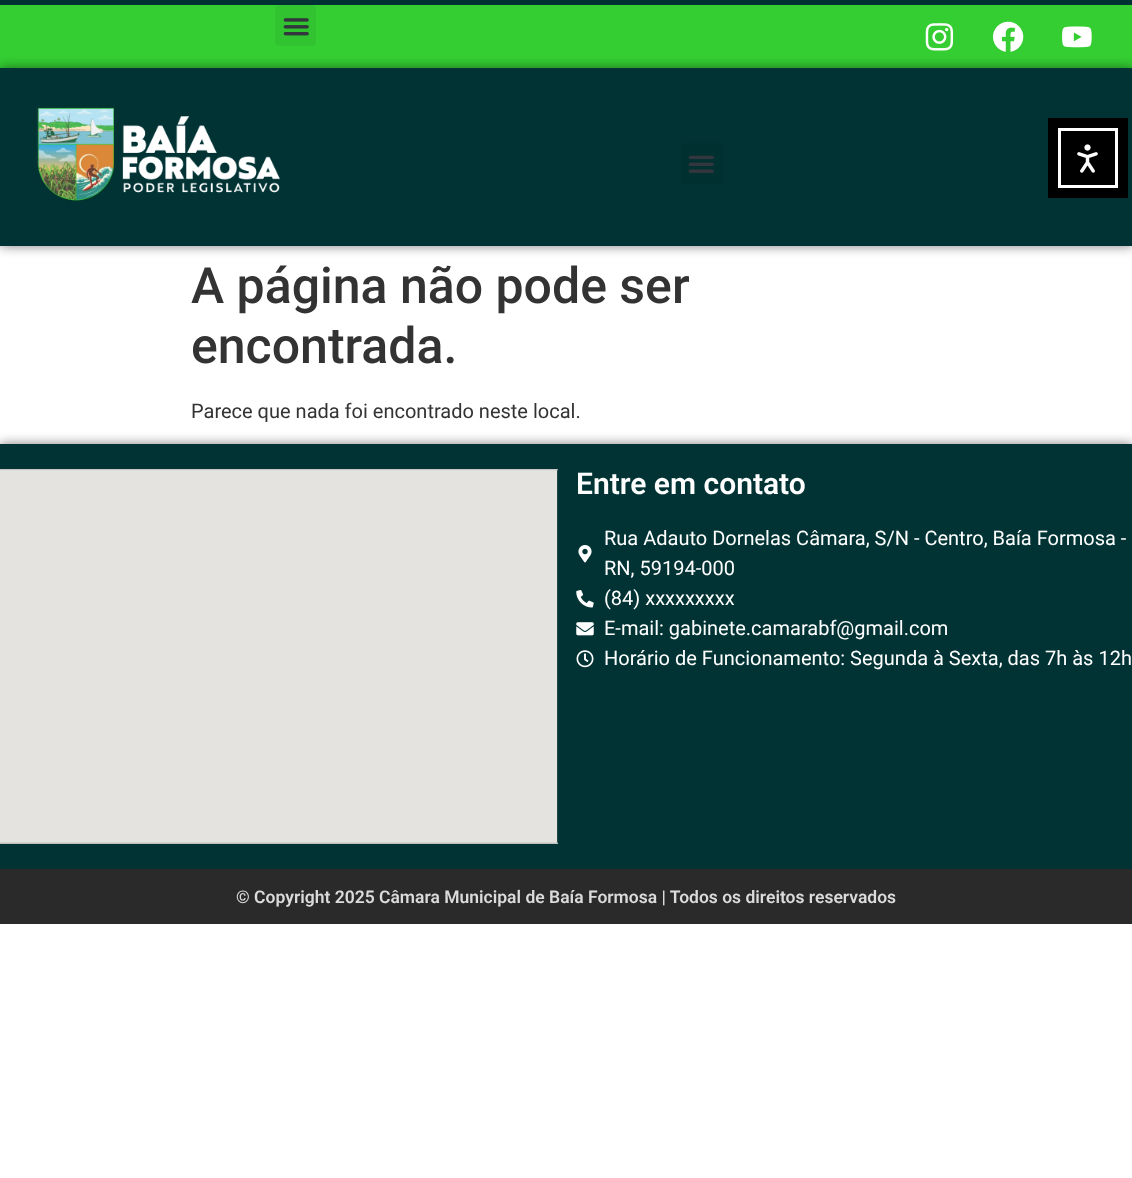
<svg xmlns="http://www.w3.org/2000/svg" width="1132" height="1178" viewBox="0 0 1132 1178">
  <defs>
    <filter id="blur1" x="-50%" y="-200%" width="200%" height="500%"><feGaussianBlur stdDeviation="6"/></filter>
  </defs>
  <rect width="100%" height="100%" fill="#ffffff"/>
  <rect x="0" y="5" width="1132" height="63" fill="#34ce32"/>
  <rect x="0" y="0" width="1132" height="5" fill="#013334"/>
  <rect x="275" y="5" width="41" height="41" rx="4" fill="#31c430"/>
  <image x="283" y="18" width="26" height="18" href="img1.png"/>
  <image x="925" y="23" width="29" height="28" href="img2.png"/>
  <image x="993" y="21" width="31" height="31" href="img3.png"/>
  <image x="1062" y="26" width="30" height="22" href="img4.png"/>
  <rect x="0" y="68" width="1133" height="178" fill="#000000" fill-opacity="0.5" filter="url(#blur1)"/>
  <rect x="0" y="68" width="1132" height="178" fill="#013334"/>
  <image x="36" y="106" width="244" height="96" href="img5.png"/>
  <rect x="681" y="143" width="42" height="41" rx="4" fill="#013031"/>
  <image x="688" y="155" width="26" height="18" href="img6.png"/>
  <rect x="1048" y="118" width="80" height="80" fill="#000000"/>
  <rect x="1059.5" y="129.5" width="57" height="57" fill="none" stroke="#ffffff" stroke-width="3"/>
  <image x="1077" y="144" width="21" height="29" href="img7.png"/>
  <text x="191" y="303" font-family="Roboto" font-size="50" font-weight="500" fill="#333333">A página não pode ser</text>
  <text x="191" y="363" font-family="Roboto" font-size="50" font-weight="500" fill="#333333">encontrada.</text>
  <text x="191" y="418" font-family="Roboto" font-size="20" fill="#333333">Parece que nada foi encontrado neste local.</text>
  <rect x="0" y="444" width="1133" height="425" fill="#000000" fill-opacity="0.5" filter="url(#blur1)"/>
  <rect x="0" y="444" width="1132" height="425" fill="#013334"/>
  <image x="0" y="469" width="558" height="375" href="img8.png"/>
  <text x="576" y="494" font-family="Roboto" font-size="30" font-weight="600" fill="#ffffff">Entre em contato</text>
  <image x="578" y="545" width="14" height="18" href="img9.png"/>
  <text x="604" y="545" font-family="Roboto" font-size="20" fill="#ffffff">Rua Adauto Dornelas Câmara, S/N - Centro, Baía Formosa -</text>
  <text x="604" y="575" font-family="Roboto" font-size="20" fill="#ffffff">RN, 59194-000</text>
  <image x="576" y="590" width="18" height="18" href="img10.png"/>
  <text x="604" y="605" font-family="Roboto" font-size="20" fill="#ffffff">(84) xxxxxxxxx</text>
  <image x="576" y="622" width="18" height="14" href="img11.png"/>
  <text x="604" y="635" font-family="Roboto" font-size="20" fill="#ffffff">E-mail: gabinete.camarabf@gmail.com</text>
  <image x="576" y="650" width="18" height="18" href="img12.png"/>
  <text x="604" y="665" font-family="Roboto" font-size="20" fill="#ffffff">Horário de Funcionamento: Segunda à Sexta, das 7h às 12h</text>
  <rect x="0" y="869" width="1132" height="55" fill="#2a2a2a"/>
  <text x="236" y="903" font-family="Roboto" font-size="17.5" font-weight="600" fill="#dbdbdb">© Copyright 2025 Câmara Municipal de Baía Formosa | Todos os direitos reservados</text>
</svg>
